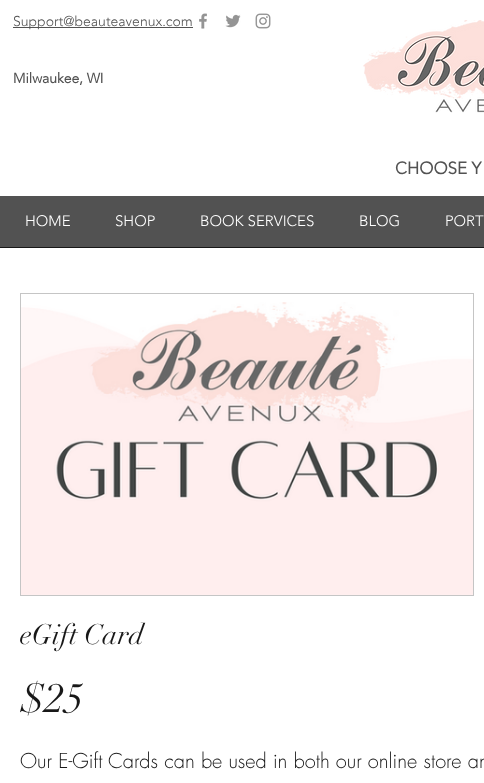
<svg xmlns="http://www.w3.org/2000/svg" width="484" height="783" viewBox="0 0 484 783">
  <rect width="100%" height="100%" fill="#ffffff"/>
  <rect x="13" y="27" width="180" height="1" fill="#525252"/>
  <text x="13" y="26" font-family="'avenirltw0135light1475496'" font-size="14" font-weight="300" fill="#525252">Support@beauteavenux.com</text>
  <image x="199" y="13" width="8" height="16" href="img1.png"/>
  <image x="225" y="14" width="16" height="14" href="img2.png"/>
  <image x="255" y="13" width="16" height="16" href="img3.png"/>
  <text x="13" y="83" font-family="'avenirltw0135light1475496'" font-size="14" font-weight="bold" fill="#525252">Milwaukee, WI</text>
  <image x="363" y="20" width="121" height="93" href="img4.png"/>
  <text x="395" y="174" font-family="'avenirltw0135light1475496'" font-size="17" font-weight="bold" fill="#525252">CHOOSE Y</text>
  <rect x="0" y="196" width="484" height="51" fill="#525252"/>
  <text x="25" y="226" font-family="'avenirltw0135light1475496'" font-size="15" font-weight="300" fill="#ffffff">HOME</text>
  <text x="115" y="226" font-family="'avenirltw0135light1475496'" font-size="15" font-weight="300" fill="#ffffff">SHOP</text>
  <text x="200" y="226" font-family="'avenirltw0135light1475496'" font-size="15" font-weight="300" fill="#ffffff">BOOK SERVICES</text>
  <text x="359" y="226" font-family="'avenirltw0135light1475496'" font-size="15" font-weight="300" fill="#ffffff">BLOG</text>
  <text x="445" y="226" font-family="'avenirltw0135light1475496'" font-size="15" font-weight="300" fill="#ffffff">PORT</text>
  <rect x="0" y="247" width="484" height="1" fill="#181818"/>
  <rect x="20.5" y="293.5" width="453" height="302" fill="none" stroke="#c5c5c5"/>
  <image x="21" y="302" width="452" height="293" href="img5.png"/>
  <text x="20" y="644" font-family="didot" font-size="28" fill="#181818">eGift Card</text>
  <text x="20" y="712" font-family="didot" font-size="40" fill="#181818">$25</text>
  <text x="20" y="768" font-family="futura" font-size="20" font-weight="300" fill="#181818">Our E-Gift Cards can be used in both our online store an</text>
</svg>
